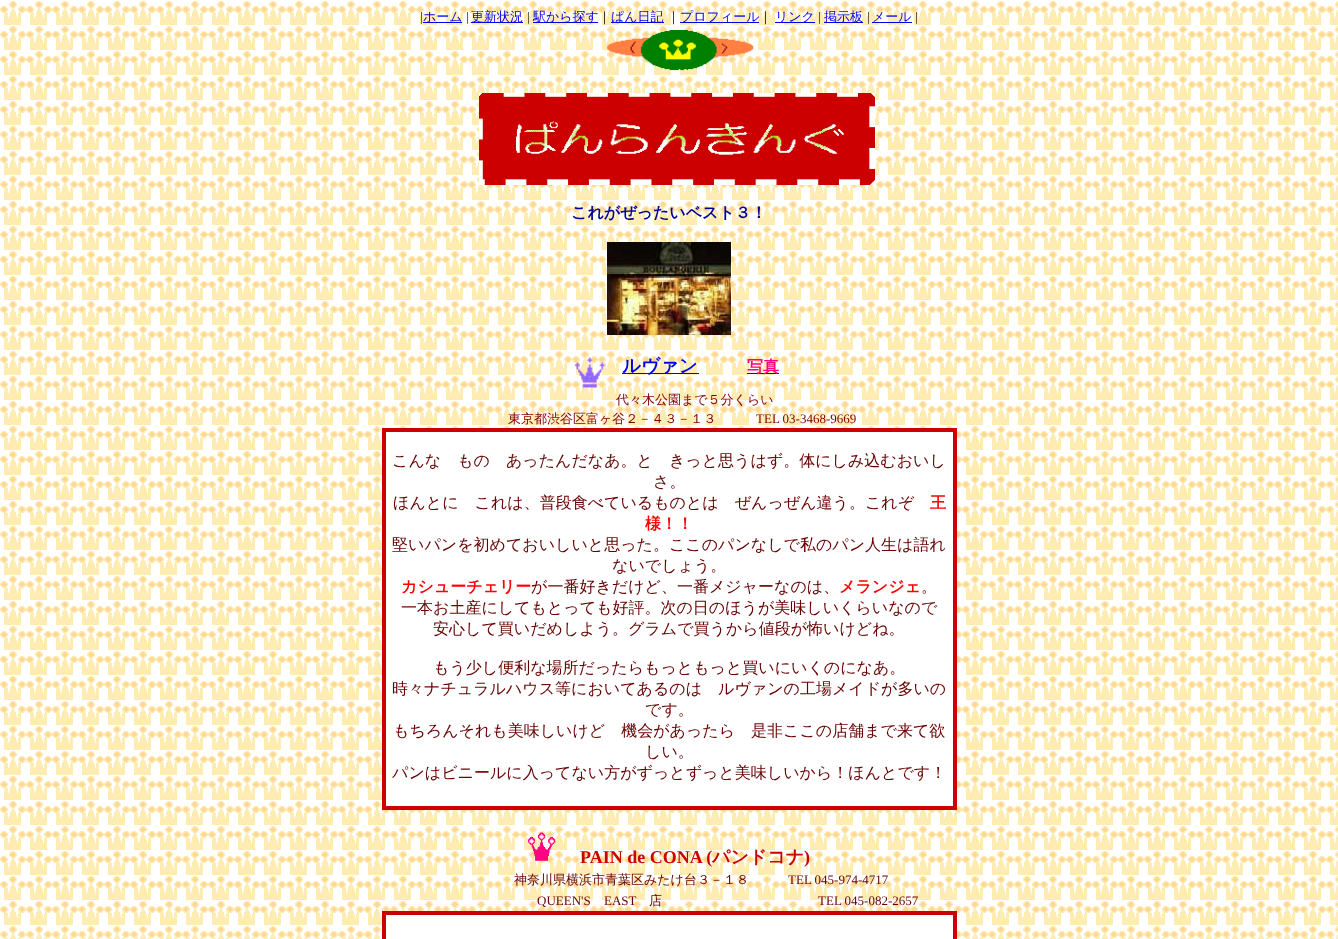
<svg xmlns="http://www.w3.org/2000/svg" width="1338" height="939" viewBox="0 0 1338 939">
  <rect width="100%" height="100%" fill="#ffffff"/>
  <image x="0" y="1" width="1338" height="938" href="img1.png"/>
  <text x="420" y="21" font-family="Liberation Serif" font-size="13" fill="#000000">|</text>
  <rect x="423" y="22" width="39" height="1" fill="#0000ee"/>
  <text x="423" y="21" font-family="WenQuanYi Zen Hei" font-size="13" font-weight="500" fill="#0000ee">ホーム</text>
  <text x="466" y="21" font-family="Liberation Serif" font-size="13" fill="#000000">|</text>
  <rect x="471" y="22" width="52" height="1" fill="#0000ee"/>
  <text x="471" y="21" font-family="WenQuanYi Zen Hei" font-size="13" font-weight="500" fill="#0000ee">更新状況</text>
  <text x="527" y="21" font-family="Liberation Serif" font-size="13" fill="#000000">|</text>
  <rect x="533" y="22" width="65" height="1" fill="#0000ee"/>
  <text x="533" y="21" font-family="WenQuanYi Zen Hei" font-size="13" font-weight="500" fill="#0000ee">駅から探す</text>
  <text x="598" y="21" font-family="WenQuanYi Zen Hei" font-size="13" font-weight="500" fill="#000000">｜</text>
  <rect x="611" y="22" width="53" height="1" fill="#0000ee"/>
  <text x="611" y="21" font-family="WenQuanYi Zen Hei" font-size="13" font-weight="500" fill="#0000ee">ぱん日記</text>
  <text x="667" y="21" font-family="WenQuanYi Zen Hei" font-size="13" font-weight="500" fill="#000000">｜</text>
  <rect x="680" y="22" width="79" height="1" fill="#0000ee"/>
  <text x="680" y="21" font-family="WenQuanYi Zen Hei" font-size="13" font-weight="500" fill="#0000ee">プロフィール</text>
  <text x="759" y="21" font-family="WenQuanYi Zen Hei" font-size="13" font-weight="500" fill="#000000">｜</text>
  <rect x="775" y="22" width="40" height="1" fill="#0000ee"/>
  <text x="775" y="21" font-family="WenQuanYi Zen Hei" font-size="13" font-weight="500" fill="#0000ee">リンク</text>
  <text x="818" y="21" font-family="Liberation Serif" font-size="13" fill="#000000">|</text>
  <rect x="824" y="22" width="39" height="1" fill="#0000ee"/>
  <text x="824" y="21" font-family="WenQuanYi Zen Hei" font-size="13" font-weight="500" fill="#0000ee">掲示板</text>
  <text x="867" y="21" font-family="Liberation Serif" font-size="13" fill="#000000">|</text>
  <text x="872" y="21" font-family="WenQuanYi Zen Hei" font-size="13" font-weight="500" fill="#0000ee">メール</text>
  <rect x="872" y="22" width="40" height="1" fill="#0000ee"/>
  <text x="915" y="21" font-family="Liberation Serif" font-size="13" fill="#000000">|</text>
  <image x="607" y="29" width="147" height="42" href="img2.png"/>
  <image x="479" y="93" width="396" height="92" href="img3.png"/>
  <text x="571" y="218" font-family="WenQuanYi Zen Hei" font-size="16" font-weight="bold" fill="#000099">これがぜったいベスト３！</text>
  <image x="607" y="242" width="124" height="93" href="img4.png"/>
  <image x="575" y="357" width="30" height="31" href="img5.png"/>
  <rect x="622" y="373" width="77" height="1" fill="#0000ee"/>
  <text x="622" y="372" font-family="WenQuanYi Zen Hei" font-size="18.5" font-weight="bold" fill="#0000ee">ルヴァン</text>
  <rect x="747" y="373" width="32" height="1" fill="#0000ee"/>
  <text x="747" y="372" font-family="WenQuanYi Zen Hei" font-size="16" font-weight="bold" fill="#ff0080">写真</text>
  <text x="616" y="404" font-family="WenQuanYi Zen Hei" font-size="13" font-weight="500" fill="#800000">代々木公園まで５分くらい</text>
  <text x="508" y="423" font-family="WenQuanYi Zen Hei" font-size="13" font-weight="500" fill="#800000">東京都渋谷区富ヶ谷２－４３－１３</text>
  <text x="756" y="423" font-family="Liberation Serif" font-size="13" fill="#800000">TEL 03-3468-9669</text>
  <rect x="383.5" y="429.5" width="572" height="379" fill="none" stroke="#cc0000" stroke-width="3"/>
  <rect x="385.5" y="431.5" width="568" height="375" fill="#ffffff" stroke="#cc0000"/>
  <text x="392" y="466" font-family="WenQuanYi Zen Hei" font-size="16" font-weight="500" fill="#660000">こんな　もの　あったんだなあ。と　きっと思うはず。体にしみ込むおいし</text>
  <text x="653" y="487" font-family="WenQuanYi Zen Hei" font-size="16" font-weight="500" fill="#660000">さ。</text>
  <text x="393" y="508" font-family="WenQuanYi Zen Hei" font-size="16" font-weight="500" fill="#660000">ほんとに　これは、普段食べているものとは　ぜんっぜん違う。これぞ</text>
  <text x="930" y="508" font-family="WenQuanYi Zen Hei" font-size="16" font-weight="bold" fill="#ff0000">王</text>
  <text x="645" y="529" font-family="WenQuanYi Zen Hei" font-size="16" font-weight="bold" fill="#ff0000">様！！</text>
  <text x="392" y="550" font-family="WenQuanYi Zen Hei" font-size="16" font-weight="500" fill="#660000">堅いパンを初めておいしいと思った。ここのパンなしで私のパン人生は語れ</text>
  <text x="612" y="571" font-family="WenQuanYi Zen Hei" font-size="16" font-weight="500" fill="#660000">ないでしょう。</text>
  <text x="401" y="592" font-family="WenQuanYi Zen Hei" font-size="16" font-weight="bold" fill="#ff0000">カシューチェリー</text>
  <text x="531" y="592" font-family="WenQuanYi Zen Hei" font-size="16" font-weight="500" fill="#660000">が一番好きだけど、一番メジャーなのは、</text>
  <text x="839" y="592" font-family="WenQuanYi Zen Hei" font-size="16" font-weight="bold" fill="#ff0000">メランジェ</text>
  <text x="921" y="592" font-family="WenQuanYi Zen Hei" font-size="16" font-weight="500" fill="#660000">。</text>
  <text x="401" y="613" font-family="WenQuanYi Zen Hei" font-size="16" font-weight="500" fill="#660000">一本お土産にしてもとっても好評。次の日のほうが美味しいくらいなので</text>
  <text x="433" y="634" font-family="WenQuanYi Zen Hei" font-size="16" font-weight="500" fill="#660000">安心して買いだめしよう。グラムで買うから値段が怖いけどね。</text>
  <text x="433" y="673" font-family="WenQuanYi Zen Hei" font-size="16" font-weight="500" fill="#660000">もう少し便利な場所だったらもっともっと買いにいくのになあ。</text>
  <text x="392" y="694" font-family="WenQuanYi Zen Hei" font-size="16" font-weight="500" fill="#660000">時々ナチュラルハウス等においてあるのは　ルヴァンの工場メイドが多いの</text>
  <text x="645" y="715" font-family="WenQuanYi Zen Hei" font-size="16" font-weight="500" fill="#660000">です。</text>
  <text x="393" y="736" font-family="WenQuanYi Zen Hei" font-size="16" font-weight="500" fill="#660000">もちろんそれも美味しいけど　機会があったら　是非ここの店舗まで来て欲</text>
  <text x="645" y="757" font-family="WenQuanYi Zen Hei" font-size="16" font-weight="500" fill="#660000">しい。</text>
  <text x="392" y="778" font-family="WenQuanYi Zen Hei" font-size="16" font-weight="500" fill="#660000">パンはビニールに入ってない方がずっとずっと美味しいから！ほんとです！</text>
  <image x="528" y="832" width="28" height="29" href="img6.png"/>
  <text x="580" y="863" font-family="Liberation Serif" font-size="18" font-weight="bold" fill="#cc0000">PAIN de CONA (</text>
  <text x="712" y="863" font-family="WenQuanYi Zen Hei" font-size="18" font-weight="bold" fill="#cc0000">パンドコナ</text>
  <text x="804" y="863" font-family="Liberation Serif" font-size="18" font-weight="bold" fill="#cc0000">)</text>
  <text x="514" y="884" font-family="WenQuanYi Zen Hei" font-size="13" font-weight="500" fill="#660000">神奈川県横浜市青葉区みたけ台３－１８</text>
  <text x="788" y="884" font-family="Liberation Serif" font-size="13" fill="#660000">TEL 045-974-4717</text>
  <text x="537" y="905" font-family="Liberation Serif" font-size="13" fill="#660000">QUEEN'S</text>
  <text x="604" y="905" font-family="Liberation Serif" font-size="13" fill="#660000">EAST</text>
  <text x="649" y="905" font-family="WenQuanYi Zen Hei" font-size="13" font-weight="500" fill="#660000">店</text>
  <text x="818" y="905" font-family="Liberation Serif" font-size="13" fill="#660000">TEL 045-082-2657</text>
  <rect x="383.5" y="912.5" width="572" height="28" fill="none" stroke="#cc0000" stroke-width="3"/>
  <rect x="385.5" y="914.5" width="568" height="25" fill="#ffffff" stroke="#cc0000"/>
</svg>
